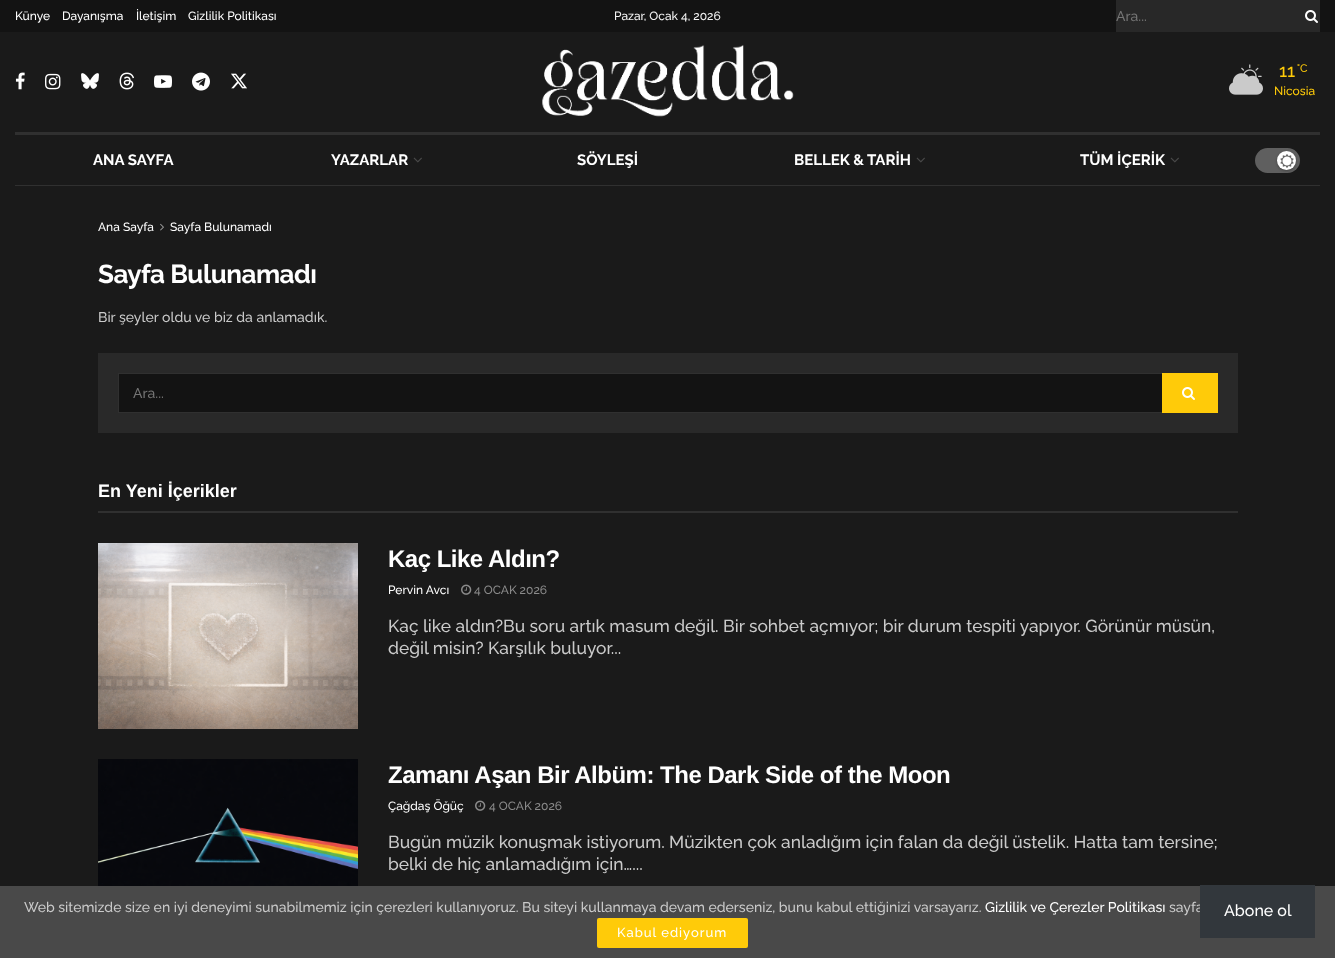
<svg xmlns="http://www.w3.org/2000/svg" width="1335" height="958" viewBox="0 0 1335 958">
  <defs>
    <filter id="blur1" x="-50%" y="-200%" width="200%" height="500%"><feGaussianBlur stdDeviation="1.5"/></filter>
  </defs>
  <rect width="100%" height="100%" fill="#1a1a1a"/>
  <rect x="0" y="0" width="1335" height="32" fill="#131313"/>
  <text x="15" y="20" font-family="Raleway" font-size="12" font-weight="500" fill="#ffffff">Künye</text>
  <text x="62" y="20" font-family="Raleway" font-size="12" font-weight="500" fill="#ffffff">Dayanışma</text>
  <text x="136" y="20" font-family="Raleway" font-size="12" font-weight="500" fill="#ffffff">İletişim</text>
  <text x="188" y="20" font-family="Raleway" font-size="12" font-weight="500" fill="#ffffff">Gizlilik Politikası</text>
  <text x="614" y="20" font-family="Raleway" font-size="12" font-weight="500" fill="#f5f5f5">Pazar, Ocak 4, 2026</text>
  <rect x="1116" y="0" width="204" height="32" fill="#282828"/>
  <text x="1116" y="21" font-family="Raleway" font-size="14" font-weight="500" fill="#757575">Ara...</text>
  <image x="1305" y="10" width="13" height="13" href="img1.png"/>
  <image x="15" y="72" width="10" height="18" href="img2.png"/>
  <image x="45" y="73" width="16" height="17" href="img3.png"/>
  <image x="81" y="73" width="18" height="16" href="img4.png"/>
  <image x="119" y="72" width="15" height="18" href="img5.png"/>
  <image x="154" y="75" width="18" height="13" href="img6.png"/>
  <image x="192" y="72" width="18" height="19" href="img7.png"/>
  <image x="231" y="73" width="16" height="16" href="img8.png"/>
  <image x="542" y="45" width="252" height="72" href="img9.png"/>
  <image x="1229" y="64" width="34" height="31" href="img10.png"/>
  <text x="1279" y="77" font-family="Raleway" font-size="18" font-weight="500" fill="#ffcb09">11</text>
  <text x="1297" y="72" font-family="Raleway" font-size="11" font-weight="500" fill="#ffcb09">°C</text>
  <text x="1274" y="95" font-family="Raleway" font-size="12" font-weight="500" fill="#ffcb09">Nicosia</text>
  <rect x="15" y="132" width="1305" height="3" fill="#303030"/>
  <rect x="15" y="185" width="1305" height="1" fill="#303030"/>
  <text x="93" y="165" font-family="Raleway" font-size="15" font-weight="bold" fill="#ffffff">ANA SAYFA</text>
  <text x="331" y="165" font-family="Raleway" font-size="15" font-weight="bold" fill="#ffffff">YAZARLAR</text>
  <image x="413" y="157" width="9" height="6" href="img11.png"/>
  <text x="577" y="165" font-family="Raleway" font-size="15" font-weight="bold" fill="#ffffff">SÖYLEŞİ</text>
  <text x="794" y="165" font-family="Raleway" font-size="15" font-weight="bold" fill="#ffffff">BELLEK &amp; TARİH</text>
  <image x="916" y="157" width="9" height="6" href="img11.png"/>
  <text x="1080" y="165" font-family="Raleway" font-size="15" font-weight="bold" fill="#ffffff">TÜM İÇERİK</text>
  <image x="1170" y="157" width="9" height="6" href="img11.png"/>
  <rect x="1255" y="148" width="45" height="25" rx="12.5" fill="#5f5f5f"/>
  <rect x="1277" y="152" width="19" height="19" rx="9.5" fill="#000000" fill-opacity="0.3" filter="url(#blur1)"/>
  <circle cx="1286.5" cy="160.5" r="9.5" fill="#ffffff"/>
  <image x="1280" y="154" width="14" height="14" href="img12.png"/>
  <text x="98" y="231" font-family="Raleway" font-size="12" font-weight="500" fill="#ffffff">Ana Sayfa</text>
  <image x="160" y="223" width="4" height="8" href="img13.png"/>
  <text x="170" y="231" font-family="Raleway" font-size="12" font-weight="500" fill="#ffffff">Sayfa Bulunamadı</text>
  <text x="98" y="283" font-family="Raleway" font-size="26" font-weight="bold" letter-spacing="-0.5" fill="#ffffff">Sayfa Bulunamadı</text>
  <text x="98" y="322" font-family="Raleway" font-size="14" font-weight="500" fill="#cacaca">Bir şeyler oldu ve biz da anlamadık.</text>
  <rect x="98" y="353" width="1140" height="80" fill="#292929"/>
  <rect x="119" y="374" width="1043" height="38" fill="#131313"/>
  <rect x="118.5" y="373.5" width="1099" height="39" fill="none" stroke="#303030"/>
  <text x="133" y="398" font-family="Raleway" font-size="14" font-weight="500" fill="#757575">Ara...</text>
  <rect x="1162" y="373" width="56" height="40" fill="#ffcb09"/>
  <image x="1182" y="387" width="13" height="13" href="img14.png"/>
  <rect x="98" y="511" width="1140" height="2" fill="#303030"/>
  <text x="98" y="497" font-family="Liberation Sans" font-size="18" font-weight="bold" fill="#ffffff">En Yeni İçerikler</text>
  <image x="98" y="543" width="260" height="186" href="img15.png"/>
  <text x="388" y="567" font-family="Liberation Sans" font-size="24" font-weight="bold" letter-spacing="-0.5" fill="#ffffff">Kaç Like Aldın?</text>
  <text x="388" y="594" font-family="Raleway" font-size="12" font-weight="500" fill="#ffffff">Pervin Avcı</text>
  <image x="461" y="584" width="11" height="11" href="img16.png"/>
  <text x="474" y="594" font-family="Raleway" font-size="12" font-weight="500" fill="#8b8b8b">4 OCAK 2026</text>
  <text x="388" y="632" font-family="Raleway" font-size="17.35" font-weight="500" fill="#cacaca">Kaç like aldın?Bu soru artık masum değil. Bir sohbet açmıyor; bir durum tespiti yapıyor. Görünür müsün,</text>
  <text x="388" y="654" font-family="Raleway" font-size="17.35" font-weight="500" fill="#cacaca">değil misin? Karşılık buluyor...</text>
  <image x="98" y="759" width="260" height="127" href="img17.png"/>
  <text x="388" y="783" font-family="Liberation Sans" font-size="24" font-weight="bold" letter-spacing="-0.5" fill="#ffffff">Zamanı Aşan Bir Albüm: The Dark Side of the Moon</text>
  <text x="388" y="810" font-family="Raleway" font-size="12" font-weight="500" fill="#ffffff">Çağdaş Öğüç</text>
  <image x="475" y="800" width="11" height="11" href="img16.png"/>
  <text x="489" y="810" font-family="Raleway" font-size="12" font-weight="500" fill="#8b8b8b">4 OCAK 2026</text>
  <text x="388" y="848" font-family="Raleway" font-size="17.35" font-weight="500" fill="#cacaca">Bugün müzik konuşmak istiyorum. Müzikten çok anladığım için falan da değil üstelik. Hatta tam tersine;</text>
  <text x="388" y="870" font-family="Raleway" font-size="17.35" font-weight="500" fill="#cacaca">belki de hiç anlamadığım için…...</text>
  <rect x="0" y="886" width="1335" height="72" fill="#494949"/>
  <text x="24" y="912" font-family="Raleway" font-size="14" font-weight="500" fill="#cacaca">Web sitemizde size en iyi deneyimi sunabilmemiz için çerezleri kullanıyoruz. Bu siteyi kullanmaya devam ederseniz, bunu kabul ettiğinizi varsayarız.</text>
  <text x="985" y="912" font-family="Raleway" font-size="14" font-weight="500" fill="#ffffff">Gizlilik ve Çerezler Politikası</text>
  <text x="1169" y="912" font-family="Raleway" font-size="14" font-weight="500" fill="#cacaca">sayfa</text>
  <rect x="597" y="918" width="151" height="30" rx="2" fill="#ffcb09"/>
  <text x="617" y="937" font-family="Raleway" font-size="13" font-weight="500" letter-spacing="1" fill="#ffffff">Kabul ediyorum</text>
  <rect x="1200" y="885" width="115" height="53" fill="#32373c"/>
  <text x="1224" y="916" font-family="Raleway" font-size="16" font-weight="500" fill="#ffffff">Abone ol</text>
</svg>
